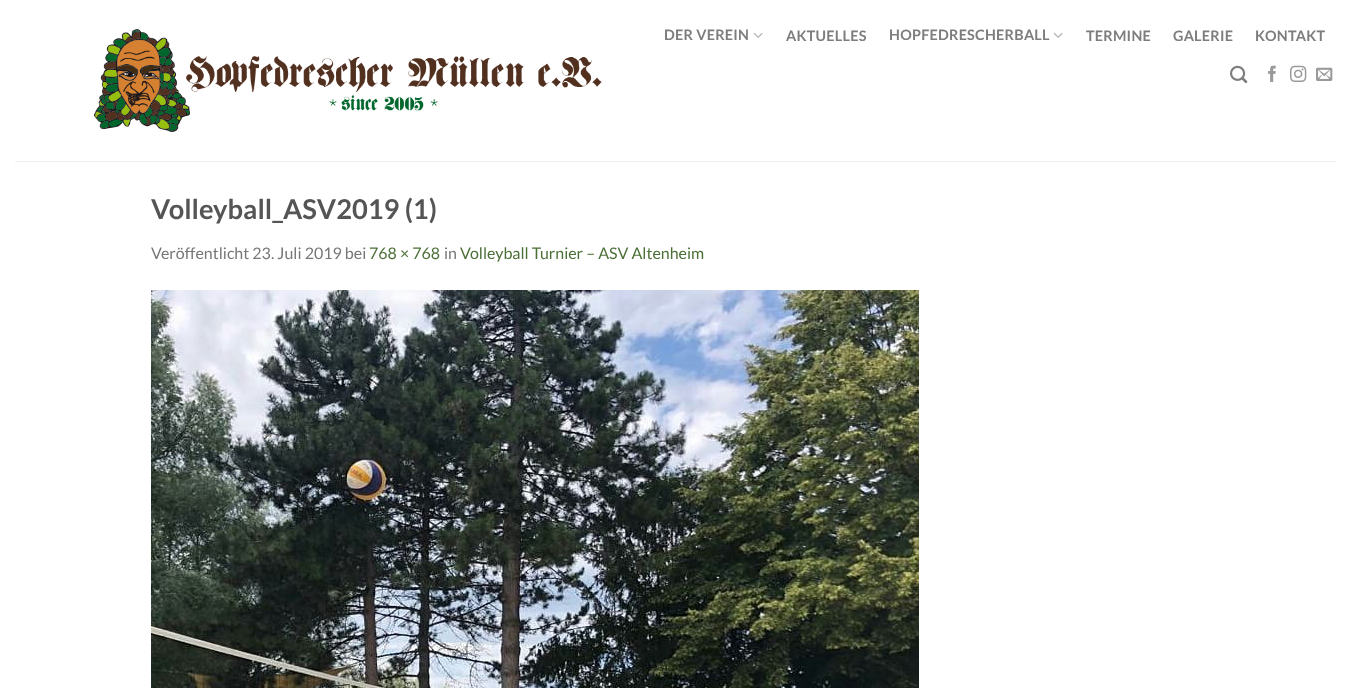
<svg xmlns="http://www.w3.org/2000/svg" width="1352" height="688" viewBox="0 0 1352 688">
  <rect width="100%" height="100%" fill="#ffffff"/>
  <image x="94" y="29" width="508" height="103" href="img1.png"/>
  <text x="664" y="40" font-family="Lato" font-size="14.4" font-weight="bold" letter-spacing="0.25" fill="#7d7d7d">DER VEREIN</text>
  <image x="753" y="32" width="10" height="6" href="img2.png"/>
  <text x="786" y="41" font-family="Lato" font-size="14.4" font-weight="bold" letter-spacing="0.25" fill="#7d7d7d">AKTUELLES</text>
  <text x="889" y="40" font-family="Lato" font-size="14.4" font-weight="bold" letter-spacing="0.25" fill="#7d7d7d">HOPFEDRESCHERBALL</text>
  <image x="1053" y="32" width="10" height="6" href="img2.png"/>
  <text x="1086" y="41" font-family="Lato" font-size="14.4" font-weight="bold" letter-spacing="0.25" fill="#7d7d7d">TERMINE</text>
  <text x="1173" y="41" font-family="Lato" font-size="14.4" font-weight="bold" letter-spacing="0.25" fill="#7d7d7d">GALERIE</text>
  <text x="1255" y="41" font-family="Lato" font-size="14.4" font-weight="bold" letter-spacing="0.25" fill="#7d7d7d">KONTAKT</text>
  <image x="1230" y="65" width="18" height="18" href="img3.png"/>
  <image x="1268" y="65" width="8" height="17" href="img4.png"/>
  <image x="1290" y="65" width="17" height="17" href="img5.png"/>
  <image x="1316" y="67" width="17" height="14" href="img6.png"/>
  <rect x="15" y="161" width="1322" height="1" fill="#f1f1f1"/>
  <text x="151" y="219" font-family="Lato" font-size="27.25" font-weight="bold" fill="#555555">Volleyball_ASV2019 (1)</text>
  <text x="151" y="259" font-family="Lato" font-size="16" fill="#777777">Veröffentlicht 23. Juli 2019 bei</text>
  <text x="369" y="259" font-family="Lato" font-size="16" fill="#4b7037">768 × 768</text>
  <text x="444" y="259" font-family="Lato" font-size="16" fill="#777777">in</text>
  <text x="460" y="259" font-family="Lato" font-size="16" fill="#4b7037">Volleyball Turnier – ASV Altenheim</text>
  <image x="151" y="290" width="768" height="398" href="img7.png"/>
</svg>
